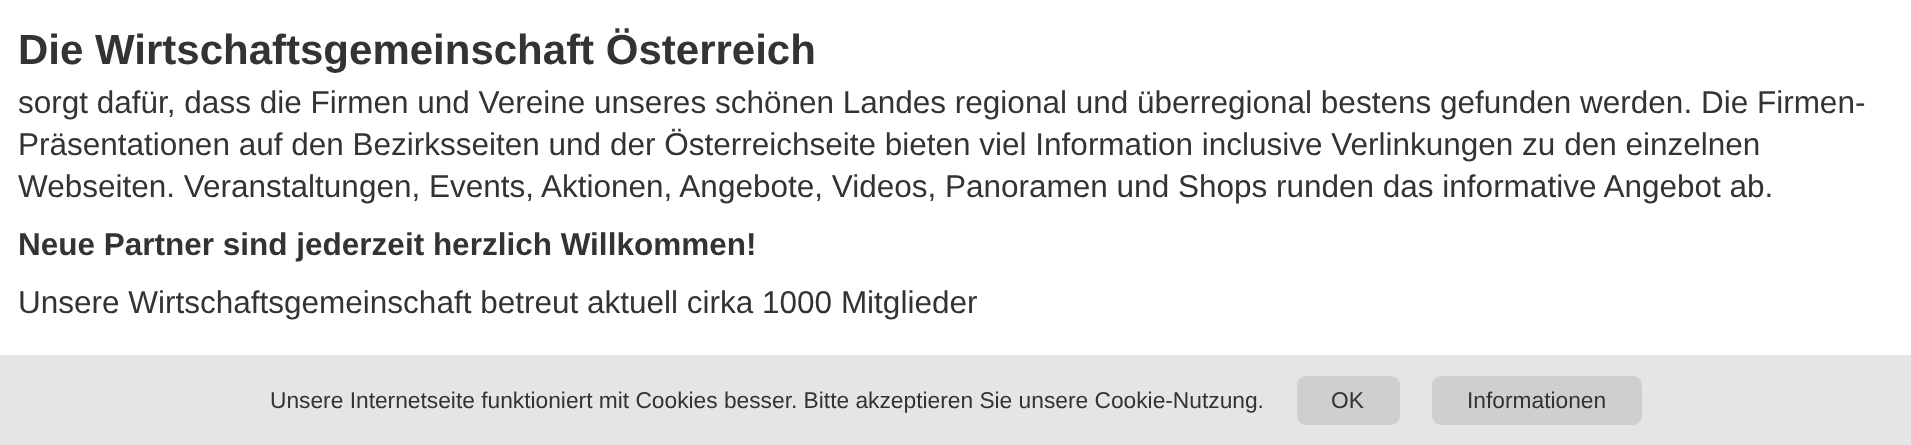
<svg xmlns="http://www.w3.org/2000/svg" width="1911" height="445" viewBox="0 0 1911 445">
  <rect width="100%" height="100%" fill="#ffffff"/>
  <text x="18" y="64" font-family="Liberation Sans" font-size="42" font-weight="bold" fill="#333333">Die Wirtschaftsgemeinschaft Österreich</text>
  <text x="18" y="113" font-family="Liberation Sans" font-size="31.5" fill="#333333">sorgt dafür, dass die Firmen und Vereine unseres schönen Landes regional und überregional bestens gefunden werden. Die Firmen-</text>
  <text x="18" y="155" font-family="Liberation Sans" font-size="31.5" fill="#333333">Präsentationen auf den Bezirksseiten und der Österreichseite bieten viel Information inclusive Verlinkungen zu den einzelnen</text>
  <text x="18" y="197" font-family="Liberation Sans" font-size="31.5" fill="#333333">Webseiten. Veranstaltungen, Events, Aktionen, Angebote, Videos, Panoramen und Shops runden das informative Angebot ab.</text>
  <text x="18" y="255" font-family="Liberation Sans" font-size="31.5" font-weight="bold" fill="#333333">Neue Partner sind jederzeit herzlich Willkommen!</text>
  <text x="18" y="313" font-family="Liberation Sans" font-size="31.5" fill="#333333">Unsere Wirtschaftsgemeinschaft betreut aktuell cirka 1000 Mitglieder</text>
  <rect x="0" y="355" width="1911" height="90" fill="#e5e5e5"/>
  <text x="270" y="408" font-family="Liberation Sans" font-size="22.75" fill="#333333">Unsere Internetseite funktioniert mit Cookies besser. Bitte akzeptieren Sie unsere Cookie-Nutzung.</text>
  <rect x="1297" y="376" width="103" height="49" rx="9" fill="#ced0d0"/>
  <text x="1331" y="408" font-family="Liberation Sans" font-size="22.75" fill="#333333">OK</text>
  <rect x="1432" y="376" width="210" height="49" rx="9" fill="#ced0d0"/>
  <text x="1467" y="408" font-family="Liberation Sans" font-size="22.75" fill="#333333">Informationen</text>
</svg>
